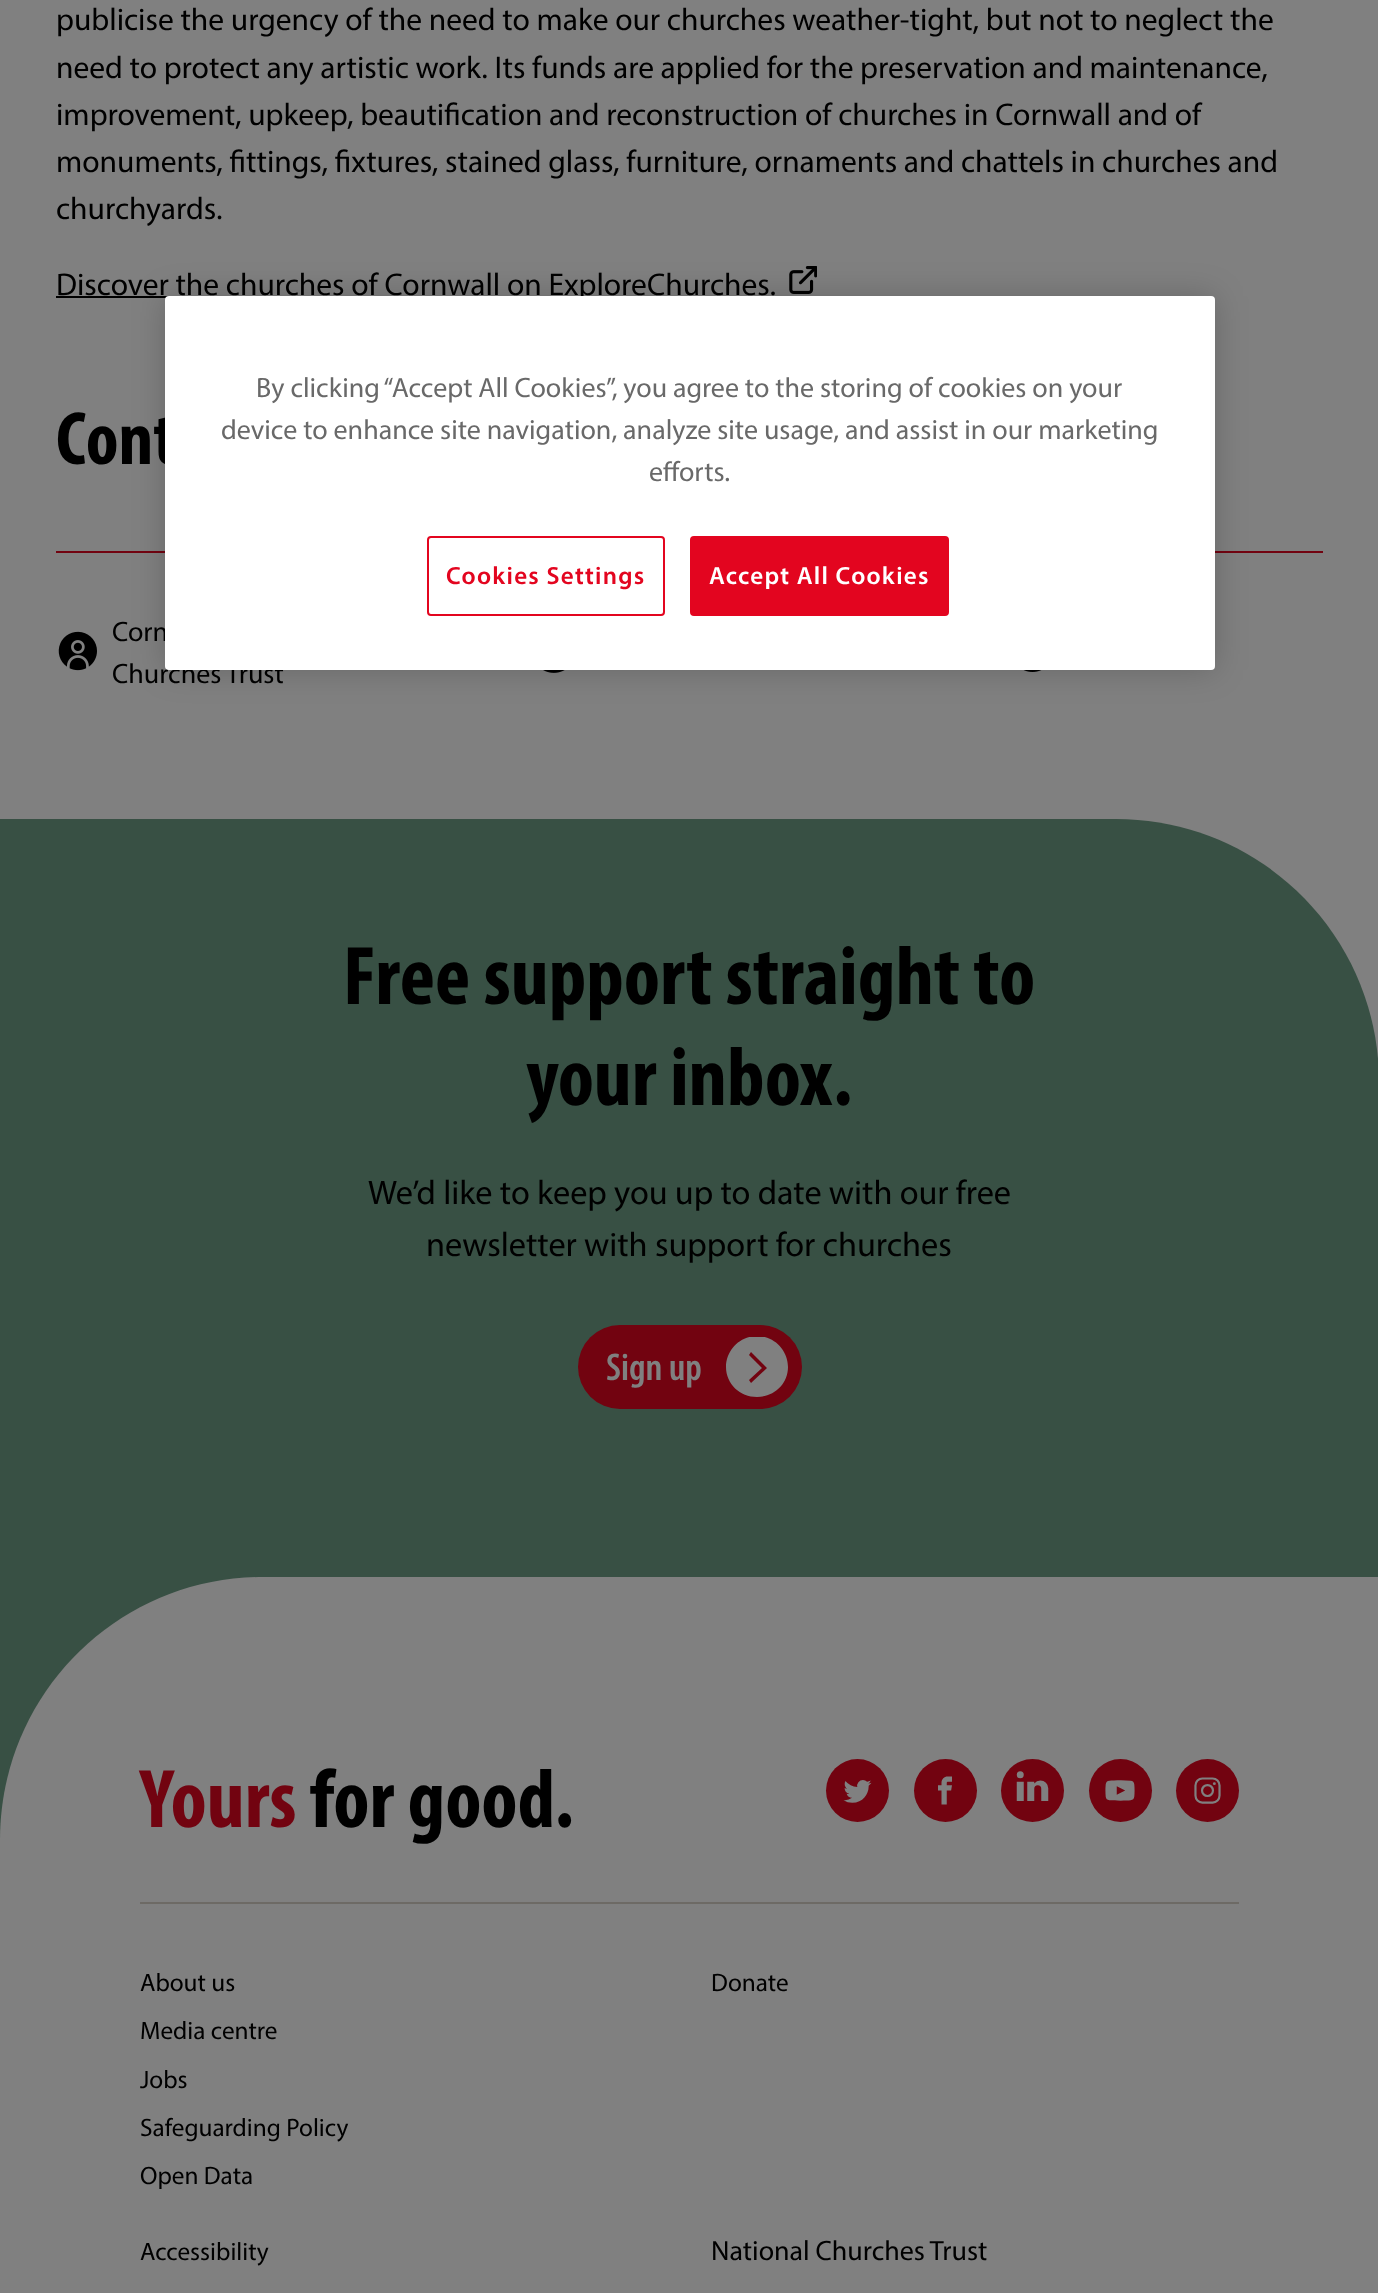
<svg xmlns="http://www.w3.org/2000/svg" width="1378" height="2293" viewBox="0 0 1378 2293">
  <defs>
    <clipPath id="clip1"><rect x="726" y="1337" width="62" height="60"/></clipPath>
    <filter id="blur1" x="-50%" y="-200%" width="200%" height="500%"><feGaussianBlur stdDeviation="16"/></filter>
  </defs>
  <rect width="100%" height="100%" fill="#808080"/>
  <text x="56" y="30" font-family="Myriad" font-size="31.5" fill="#000000">publicise the urgency of the need to make our churches weather-tight, but not to neglect the</text>
  <text x="56" y="78" font-family="Myriad" font-size="31.5" fill="#000000">need to protect any artistic work. Its funds are applied for the preservation and maintenance,</text>
  <text x="56" y="125" font-family="Myriad" font-size="31.5" fill="#000000">improvement, upkeep, beautification and reconstruction of churches in Cornwall and of</text>
  <text x="56" y="172" font-family="Myriad" font-size="31.5" fill="#000000">monuments, fittings, fixtures, stained glass, furniture, ornaments and chattels in churches and</text>
  <text x="56" y="219" font-family="Myriad" font-size="31.5" fill="#000000">churchyards.</text>
  <rect x="56" y="296" width="113" height="2" fill="#000000"/>
  <text x="56" y="295" font-family="Myriad" font-size="31.5" fill="#000000">Discover the churches of Cornwall on ExploreChurches.</text>
  <image x="789" y="266" width="28" height="28" href="img1.png"/>
  <text x="56" y="464" font-family="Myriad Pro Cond" font-size="76" font-weight="bold" fill="#000000">Cont</text>
  <rect x="56" y="551" width="1267" height="2" fill="#720310"/>
  <image x="58" y="631" width="39" height="40" href="img2.png"/>
  <text x="112" y="641" font-family="Myriad" font-size="28" fill="#000000">Corn</text>
  <text x="112" y="683" font-family="Myriad" font-size="28" fill="#000000">Churches Trust</text>
  <image x="543" y="670" width="22" height="3" href="img3.png"/>
  <image x="1023" y="670" width="19" height="2" href="img4.png"/>
  <path d="M0 819H1116C1261.5 819 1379 936.5 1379 1082V1577H0Z" fill="#385044"/>
  <text x="343" y="1004" font-family="Myriad Pro Cond" font-size="84" font-weight="bold" fill="#000000">Free support straight to</text>
  <text x="526" y="1105" font-family="Myriad Pro Cond" font-size="84" font-weight="bold" fill="#000000">your inbox.</text>
  <text x="368" y="1204" font-family="Myriad" font-size="34.25" fill="#000000">We’d like to keep you up to date with our free</text>
  <text x="426" y="1256" font-family="Myriad" font-size="34.25" fill="#000000">newsletter with support for churches</text>
  <rect x="578" y="1325" width="224" height="84" rx="42" fill="#720310"/>
  <text x="606" y="1380" font-family="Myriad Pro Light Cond" font-size="39" font-weight="600" fill="#808080">Sign up</text>
  <g clip-path="url(#clip1)">
    <path d="M757 1397C774 1397 788 1384 788 1367C788 1350 774 1336 757 1336C740 1336 726 1350 726 1367C726 1384 740 1397 757 1397ZM749 1355L751 1352L767 1368L751 1383L749 1380L762 1368Z" fill="#808080" fill-rule="evenodd"/>
  </g>
  <rect x="0" y="1577" width="261" height="262" fill="#385044"/>
  <path d="M263 1577H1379V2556H0V1840C0 1694.5 117.5 1577 263 1577Z" fill="#808080"/>
  <rect x="140" y="1902" width="1099" height="2" fill="#6d6a65"/>
  <text x="140" y="1827" font-family="Myriad Pro Cond" font-size="84" font-weight="bold" fill="#720310">Yours</text>
  <text x="310" y="1827" font-family="Myriad Pro Cond" font-size="84" font-weight="bold" fill="#000000">for good.</text>
  <circle cx="857.5" cy="1790.5" r="31.5" fill="#720310"/>
  <image x="843" y="1780" width="29" height="23" href="img5.png"/>
  <circle cx="945.5" cy="1790.5" r="31.5" fill="#720310"/>
  <image x="938" y="1776" width="14" height="29" href="img6.png"/>
  <circle cx="1032.5" cy="1790.5" r="31.5" fill="#720310"/>
  <image x="1016" y="1771" width="33" height="30" href="img7.png"/>
  <circle cx="1120.5" cy="1790.5" r="31.5" fill="#720310"/>
  <image x="1105" y="1780" width="30" height="21" href="img8.png"/>
  <circle cx="1207.5" cy="1790.5" r="31.5" fill="#720310"/>
  <image x="1194" y="1777" width="27" height="27" href="img9.png"/>
  <text x="140" y="1991" font-family="Myriad" font-size="25.25" fill="#000000">About us</text>
  <text x="140" y="2039" font-family="Myriad" font-size="25.25" fill="#000000">Media centre</text>
  <text x="140" y="2088" font-family="Myriad" font-size="25.25" fill="#000000">Jobs</text>
  <text x="140" y="2136" font-family="Myriad" font-size="25.25" fill="#000000">Safeguarding Policy</text>
  <text x="140" y="2184" font-family="Myriad" font-size="25.25" fill="#000000">Open Data</text>
  <text x="711" y="1991" font-family="Myriad" font-size="25.25" fill="#000000">Donate</text>
  <text x="140" y="2260" font-family="Myriad" font-size="25.25" fill="#000000">Accessibility</text>
  <text x="711" y="2260" font-family="Myriad" font-size="28" fill="#000000">National Churches Trust</text>
  <rect x="165" y="296" width="1050" height="374" rx="4" fill="#000000" fill-opacity="0.2" filter="url(#blur1)"/>
  <rect x="165" y="296" width="1050" height="374" rx="4" fill="#ffffff"/>
  <text x="256" y="397" font-family="Myriad" font-size="28" fill="#696969">By clicking “Accept All Cookies”, you agree to the storing of cookies on your</text>
  <text x="221" y="439" font-family="Myriad" font-size="28" fill="#696969">device to enhance site navigation, analyze site usage, and assist in our marketing</text>
  <text x="649" y="481" font-family="Myriad" font-size="28" fill="#696969">efforts.</text>
  <rect x="428" y="537" width="236" height="78" rx="3" fill="none" stroke="#e3051f" stroke-width="2"/>
  <text x="446" y="584" font-family="Myriad" font-size="25" font-weight="600" letter-spacing="1.25" fill="#e3051f">Cookies Settings</text>
  <rect x="691" y="537" width="257" height="78" rx="3" fill="#e3051f" stroke="#e3051f" stroke-width="2"/>
  <text x="709" y="584" font-family="Myriad" font-size="25" font-weight="600" letter-spacing="1.25" fill="#ffffff">Accept All Cookies</text>
</svg>
